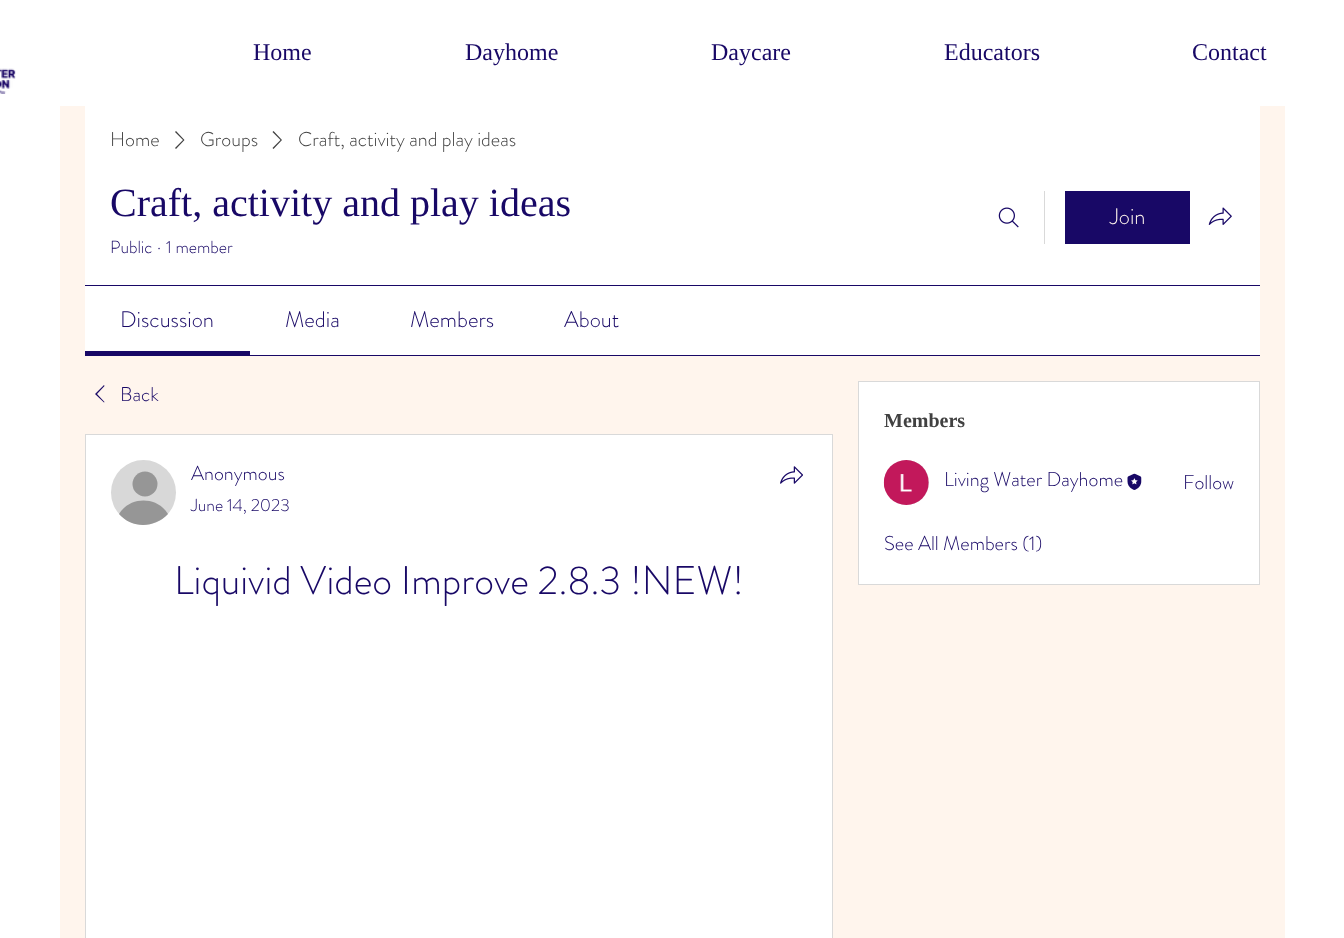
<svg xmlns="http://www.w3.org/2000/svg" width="1344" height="938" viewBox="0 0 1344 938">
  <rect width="100%" height="100%" fill="#ffffff"/>
  <text x="253" y="60" font-family="Liberation Serif" font-size="24" fill="#180866">Home</text>
  <text x="465" y="60" font-family="Liberation Serif" font-size="24" fill="#180866">Dayhome</text>
  <text x="711" y="60" font-family="Liberation Serif" font-size="24" fill="#180866">Daycare</text>
  <text x="944" y="60" font-family="Liberation Serif" font-size="24" fill="#180866">Educators</text>
  <text x="1192" y="60" font-family="Liberation Serif" font-size="24" fill="#180866">Contact</text>
  <image x="0" y="68" width="16" height="26" href="img1.png"/>
  <rect x="60" y="106" width="1225" height="832" fill="#fff5ed"/>
  <rect x="85" y="106" width="1175" height="249" fill="#ffffff"/>
  <text x="110" y="146" font-family="'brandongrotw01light'" font-size="20" font-weight="300" fill="#414141">Home</text>
  <path d="M176 131L184.5 140L176 149L175 148L183 140L175 132Z" fill="#414141" fill-rule="evenodd"/>
  <text x="200" y="146" font-family="'brandongrotw01light'" font-size="20" font-weight="300" fill="#414141">Groups</text>
  <path d="M273.5 131L282 140L273.5 149L272.5 148L280.5 140L272.5 132Z" fill="#414141" fill-rule="evenodd"/>
  <text x="298" y="146" font-family="'brandongrotw01light'" font-size="20" font-weight="300" fill="#414141">Craft, activity and play ideas</text>
  <text x="110" y="216" font-family="Liberation Serif" font-size="40" fill="#180866">Craft, activity and play ideas</text>
  <text x="110" y="253" font-family="'brandongrotw01light'" font-size="17.5" font-weight="300" fill="#180866">Public</text>
  <text x="157" y="253" font-family="'brandongrotw01light'" font-size="17.5" font-weight="300" fill="#180866">·</text>
  <text x="166" y="253" font-family="'brandongrotw01light'" font-size="17.5" font-weight="300" fill="#180866">1 member</text>
  <image x="998" y="207" width="21" height="21" href="img2.png"/>
  <rect x="1044" y="191" width="1" height="53" fill="#d9d9d9"/>
  <rect x="1065" y="191" width="125" height="53" fill="#180866"/>
  <text x="1110" y="224" font-family="'brandongrotw01light'" font-size="22.5" font-weight="300" fill="#fff5ed">Join</text>
  <image x="1208" y="207" width="24" height="18" href="img3.png"/>
  <rect x="85" y="285" width="1175" height="1" fill="#180866"/>
  <rect x="85" y="355" width="1175" height="1" fill="#180866"/>
  <rect x="85" y="351" width="165" height="4" fill="#180866"/>
  <text x="120" y="327" font-family="'brandongrotw01light'" font-size="22.5" font-weight="300" fill="#180866">Discussion</text>
  <text x="285" y="327" font-family="'brandongrotw01light'" font-size="22.5" font-weight="300" fill="#180866">Media</text>
  <text x="410" y="327" font-family="'brandongrotw01light'" font-size="22.5" font-weight="300" fill="#180866">Members</text>
  <text x="564" y="327" font-family="'brandongrotw01light'" font-size="22.5" font-weight="300" fill="#180866">About</text>
  <path d="M104 385L104.5 386L97 394L104.5 402L104 402.5L95 394Z" fill="#180866" fill-rule="evenodd"/>
  <text x="120" y="401" font-family="'brandongrotw01light'" font-size="20" font-weight="300" fill="#180866">Back</text>
  <rect x="85.5" y="434.5" width="747" height="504" fill="#ffffff" stroke="#d9d9d9"/>
  <circle cx="143.5" cy="492.5" r="32.5" fill="#d8d8d8"/>
  <circle cx="145" cy="484" r="12.5" fill="#969696"/>
  <path d="M168 514C155 528 132 529 119 514C130 496 157 496 168 514Z" fill="#969696"/>
  <text x="191" y="480" font-family="'brandongrotw01light'" font-size="20" font-weight="300" fill="#180866">Anonymous</text>
  <text x="191" y="511" font-family="'brandongrotw01light'" font-size="17.5" font-weight="300" fill="#180866">June 14, 2023</text>
  <image x="780" y="466" width="23" height="18" href="img4.png"/>
  <text x="174" y="594" font-family="'brandongrotw01light'" font-size="40" font-weight="300" fill="#180866">Liquivid Video Improve 2.8.3 !NEW!</text>
  <rect x="858.5" y="381.5" width="401" height="203" fill="#ffffff" stroke="#d9d9d9"/>
  <text x="884" y="427" font-family="Liberation Serif" font-size="20" font-weight="bold" fill="#414141">Members</text>
  <circle cx="906.5" cy="482.5" r="22.5" fill="#d8d8d8"/>
  <image x="883" y="460" width="46" height="45" href="img5.png"/>
  <text x="944" y="486" font-family="'brandongrotw01light'" font-size="20" font-weight="300" fill="#180866">Living Water Dayhome</text>
  <image x="1127" y="473" width="15" height="17" href="img6.png"/>
  <text x="1183" y="489" font-family="'brandongrotw01light'" font-size="20" font-weight="300" fill="#180866">Follow</text>
  <text x="884" y="550" font-family="'brandongrotw01light'" font-size="20" font-weight="300" fill="#180866">See All Members (1)</text>
</svg>
